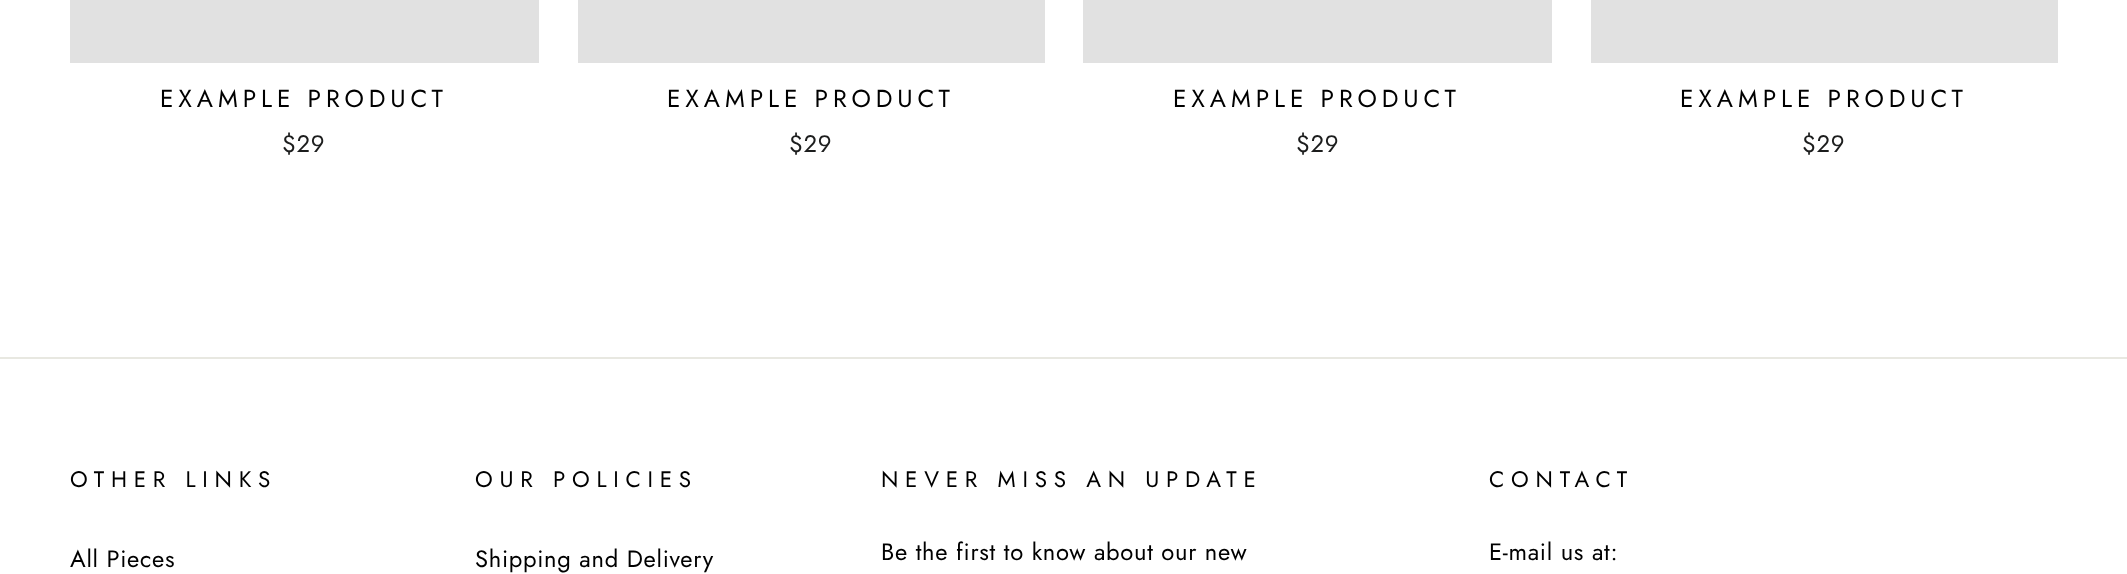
<svg xmlns="http://www.w3.org/2000/svg" width="2127" height="574" viewBox="0 0 2127 574">
  <rect width="100%" height="100%" fill="#ffffff"/>
  <rect x="70" y="0" width="469" height="63" fill="#e1e1e1"/>
  <text x="160" y="107" font-family="Jost" font-size="24.5" letter-spacing="4.9" fill="#000000">EXAMPLE PRODUCT</text>
  <text x="282" y="152" font-family="Jost" font-size="23.75" letter-spacing="0.7" fill="#1c1d1d">$29</text>
  <rect x="578" y="0" width="467" height="63" fill="#e1e1e1"/>
  <text x="667" y="107" font-family="Jost" font-size="24.5" letter-spacing="4.9" fill="#000000">EXAMPLE PRODUCT</text>
  <text x="789" y="152" font-family="Jost" font-size="23.75" letter-spacing="0.7" fill="#1c1d1d">$29</text>
  <rect x="1083" y="0" width="469" height="63" fill="#e1e1e1"/>
  <text x="1173" y="107" font-family="Jost" font-size="24.5" letter-spacing="4.9" fill="#000000">EXAMPLE PRODUCT</text>
  <text x="1296" y="152" font-family="Jost" font-size="23.75" letter-spacing="0.7" fill="#1c1d1d">$29</text>
  <rect x="1591" y="0" width="467" height="63" fill="#e1e1e1"/>
  <text x="1680" y="107" font-family="Jost" font-size="24.5" letter-spacing="4.9" fill="#000000">EXAMPLE PRODUCT</text>
  <text x="1802" y="152" font-family="Jost" font-size="23.75" letter-spacing="0.7" fill="#1c1d1d">$29</text>
  <rect x="0" y="357" width="2127" height="2" fill="#e8e8e1"/>
  <text x="70" y="487" font-family="Jost" font-size="22.4" letter-spacing="6.75" fill="#000000">OTHER LINKS</text>
  <text x="70" y="567" font-family="Jost" font-size="23.75" letter-spacing="0.7" fill="#000000">All Pieces</text>
  <text x="475" y="487" font-family="Jost" font-size="22.4" letter-spacing="6.75" fill="#000000">OUR POLICIES</text>
  <text x="475" y="567" font-family="Jost" font-size="23.75" letter-spacing="0.7" fill="#000000">Shipping and Delivery</text>
  <text x="881" y="487" font-family="Jost" font-size="22.4" letter-spacing="6.75" fill="#000000">NEVER MISS AN UPDATE</text>
  <text x="881" y="560" font-family="Jost" font-size="23.75" letter-spacing="0.7" fill="#000000">Be the first to know about our new</text>
  <text x="1489" y="487" font-family="Jost" font-size="22.4" letter-spacing="6.75" fill="#000000">CONTACT</text>
  <text x="1489" y="560" font-family="Jost" font-size="23.75" letter-spacing="0.7" fill="#000000">E-mail us at:</text>
</svg>
